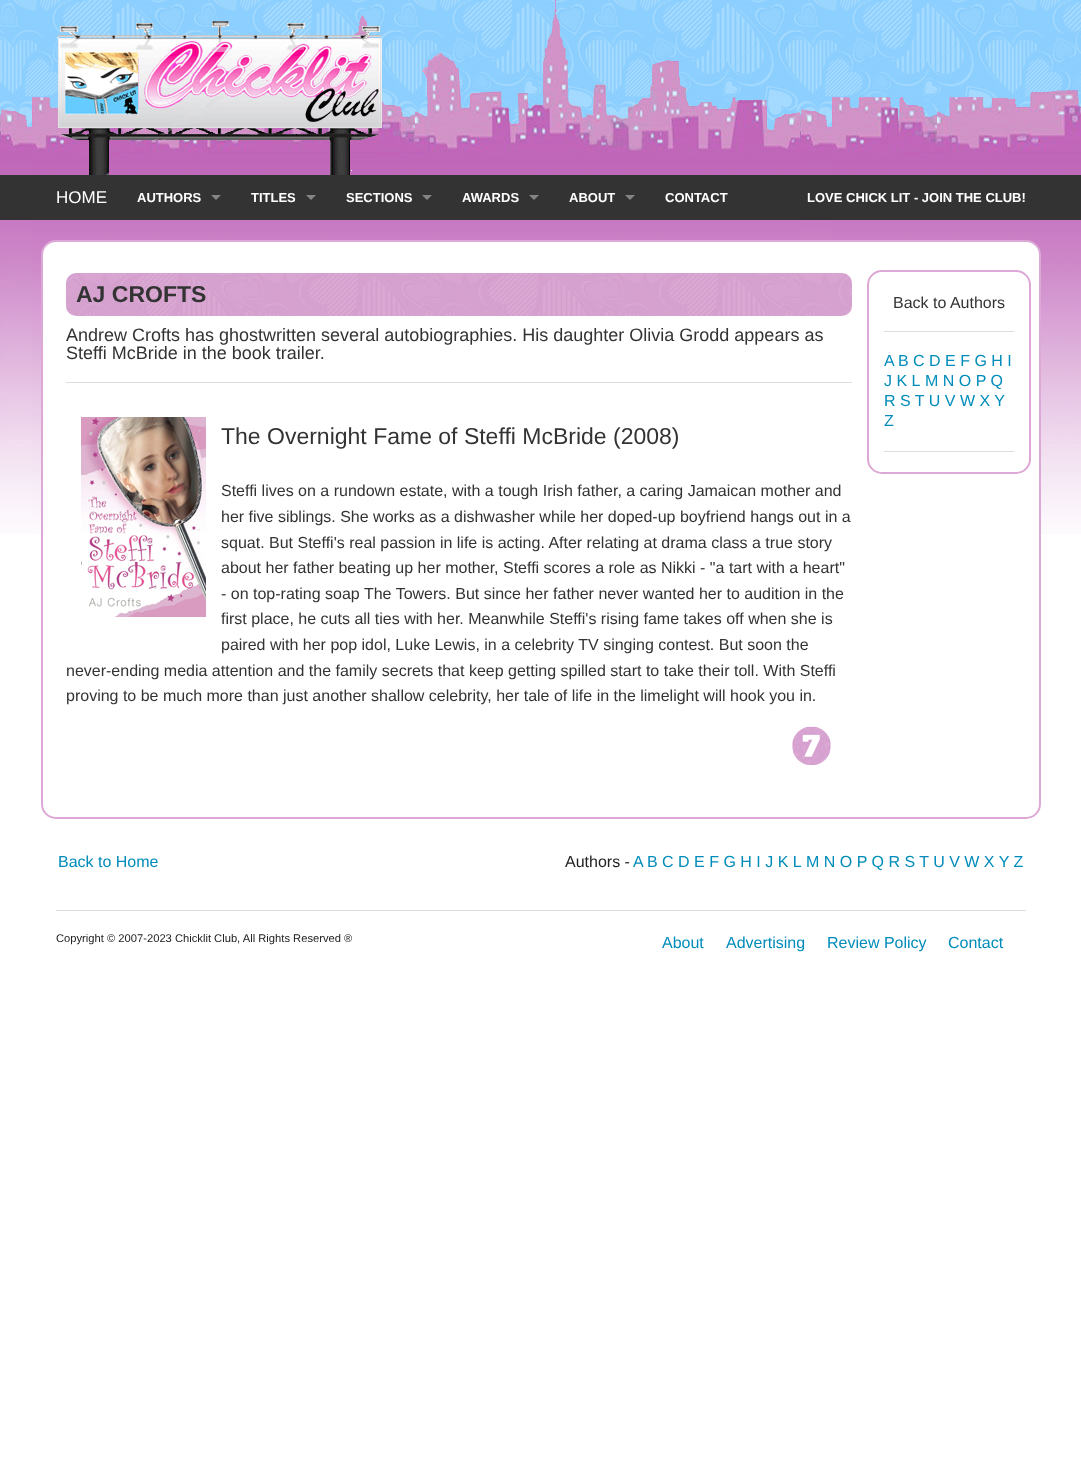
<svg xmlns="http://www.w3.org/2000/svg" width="1081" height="1474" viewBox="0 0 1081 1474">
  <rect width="100%" height="100%" fill="#ffffff"/>
  <image x="0" y="0" width="1081" height="534" href="img1.png"/>
  <image x="57" y="21" width="325" height="154" href="img2.png"/>
  <rect x="0" y="175" width="1081" height="45" fill="#333333"/>
  <text x="56" y="203" font-family="Liberation Sans" font-size="17" fill="#ffffff">HOME</text>
  <text x="137" y="202" font-family="Liberation Sans" font-size="13" font-weight="bold" fill="#ffffff">AUTHORS</text>
  <path d="M211 195H221L216 200Z" fill="#858585"/>
  <text x="251" y="202" font-family="Liberation Sans" font-size="13" font-weight="bold" fill="#ffffff">TITLES</text>
  <path d="M306 195H316L311 200Z" fill="#858585"/>
  <text x="346" y="202" font-family="Liberation Sans" font-size="13" font-weight="bold" fill="#ffffff">SECTIONS</text>
  <path d="M422 195H432L427 200Z" fill="#858585"/>
  <text x="462" y="202" font-family="Liberation Sans" font-size="13" font-weight="bold" fill="#ffffff">AWARDS</text>
  <path d="M529 195H539L534 200Z" fill="#858585"/>
  <text x="569" y="202" font-family="Liberation Sans" font-size="13" font-weight="bold" fill="#ffffff">ABOUT</text>
  <path d="M625 195H635L630 200Z" fill="#858585"/>
  <text x="665" y="202" font-family="Liberation Sans" font-size="13" font-weight="bold" fill="#ffffff">CONTACT</text>
  <text x="807" y="202" font-family="Liberation Sans" font-size="13" font-weight="bold" fill="#ffffff">LOVE CHICK LIT - JOIN THE CLUB!</text>
  <rect x="42" y="241" width="998" height="577" rx="14" fill="#ffffff" stroke="#dca9d6" stroke-width="2"/>
  <image x="66" y="273" width="786" height="43" href="img3.png"/>
  <text x="76" y="302" font-family="Liberation Sans" font-size="23" font-weight="bold" fill="#333333">AJ CROFTS</text>
  <text x="66" y="341" font-family="Liberation Sans" font-size="18" fill="#333333">Andrew Crofts has ghostwritten several autobiographies. His daughter Olivia Grodd appears as</text>
  <text x="66" y="359" font-family="Liberation Sans" font-size="18" fill="#333333">Steffi McBride in the book trailer.</text>
  <rect x="66" y="382" width="786" height="1" fill="#dddddd"/>
  <image x="81" y="417" width="125" height="200" href="img4.png"/>
  <text x="221" y="444" font-family="Liberation Sans" font-size="23" fill="#333333">The Overnight Fame of Steffi McBride (2008)</text>
  <text x="221" y="496" font-family="Liberation Sans" font-size="16" fill="#333333">Steffi lives on a rundown estate, with a tough Irish father, a caring Jamaican mother and</text>
  <text x="221" y="522" font-family="Liberation Sans" font-size="16" fill="#333333">her five siblings. She works as a dishwasher while her doped-up boyfriend hangs out in a</text>
  <text x="221" y="548" font-family="Liberation Sans" font-size="16" fill="#333333">squat. But Steffi's real passion in life is acting. After relating at drama class a true story</text>
  <text x="221" y="573" font-family="Liberation Sans" font-size="16" fill="#333333">about her father beating up her mother, Steffi scores a role as Nikki - "a tart with a heart"</text>
  <text x="221" y="599" font-family="Liberation Sans" font-size="16" fill="#333333">- on top-rating soap The Towers. But since her father never wanted her to audition in the</text>
  <text x="221" y="624" font-family="Liberation Sans" font-size="16" fill="#333333">first place, he cuts all ties with her. Meanwhile Steffi's rising fame takes off when she is</text>
  <text x="221" y="650" font-family="Liberation Sans" font-size="16" fill="#333333">paired with her pop idol, Luke Lewis, in a celebrity TV singing contest. But soon the</text>
  <text x="66" y="676" font-family="Liberation Sans" font-size="16" fill="#333333">never-ending media attention and the family secrets that keep getting spilled start to take their toll. With Steffi</text>
  <text x="66" y="701" font-family="Liberation Sans" font-size="16" fill="#333333">proving to be much more than just another shallow celebrity, her tale of life in the limelight will hook you in.</text>
  <image x="792" y="726" width="39" height="39" href="img5.png"/>
  <rect x="868" y="271" width="162" height="202" rx="14" fill="none" stroke="#dca9d6" stroke-width="2"/>
  <text x="893" y="308" font-family="Liberation Sans" font-size="16" fill="#333333">Back to Authors</text>
  <rect x="884" y="331" width="130" height="1" fill="#dddddd"/>
  <text x="884" y="366" font-family="Liberation Sans" font-size="16" fill="#008cba">A</text>
  <text x="898" y="366" font-family="Liberation Sans" font-size="16" fill="#008cba">B C D E F G H I</text>
  <text x="884" y="386" font-family="Liberation Sans" font-size="16" fill="#008cba">J K L</text>
  <text x="925" y="386" font-family="Liberation Sans" font-size="16" fill="#008cba">M N O P Q</text>
  <text x="884" y="406" font-family="Liberation Sans" font-size="16" fill="#008cba">R S T U V W X Y</text>
  <text x="884" y="426" font-family="Liberation Sans" font-size="16" fill="#008cba">Z</text>
  <rect x="884" y="451" width="130" height="1" fill="#dddddd"/>
  <text x="58" y="867" font-family="Liberation Sans" font-size="16" fill="#008cba">Back to Home</text>
  <text x="565" y="867" font-family="Liberation Sans" font-size="16" fill="#222222">Authors -</text>
  <text x="633" y="867" font-family="Liberation Sans" font-size="16" fill="#008cba">A</text>
  <text x="647" y="867" font-family="Liberation Sans" font-size="16" fill="#008cba">B C D E F G H I J K L</text>
  <text x="806" y="867" font-family="Liberation Sans" font-size="16" fill="#008cba">M N O P Q R S T U V W X Y Z</text>
  <rect x="56" y="910" width="970" height="1" fill="#dddddd"/>
  <text x="56" y="942" font-family="Liberation Sans" font-size="11.2" fill="#222222">Copyright © 2007-2023 Chicklit Club, All Rights Reserved ®</text>
  <text x="662" y="948" font-family="Liberation Sans" font-size="16" fill="#008cba">About</text>
  <text x="726" y="948" font-family="Liberation Sans" font-size="16" fill="#008cba">Advertising</text>
  <text x="827" y="948" font-family="Liberation Sans" font-size="16" fill="#008cba">Review Policy</text>
  <text x="948" y="948" font-family="Liberation Sans" font-size="16" fill="#008cba">Contact</text>
</svg>
